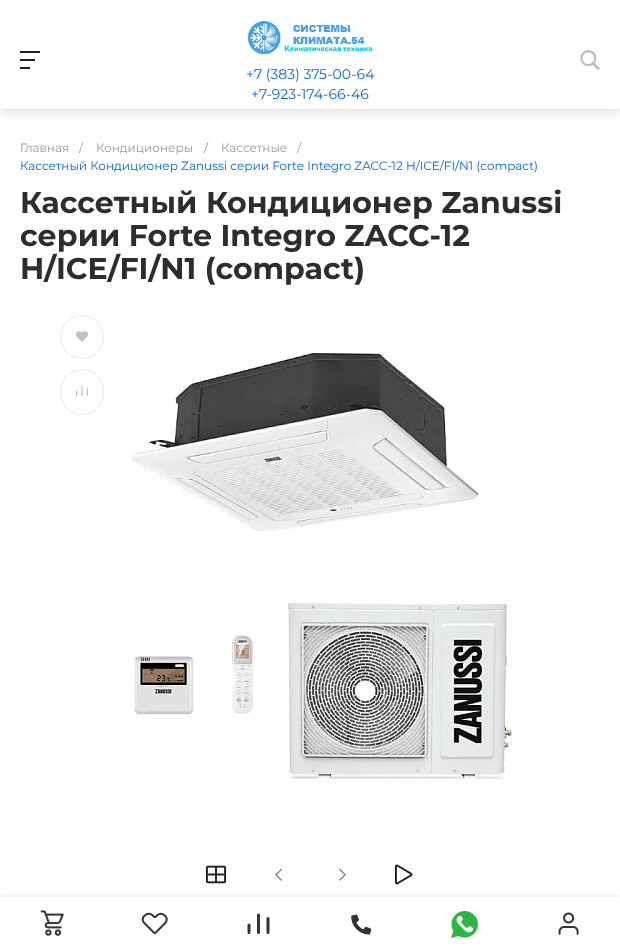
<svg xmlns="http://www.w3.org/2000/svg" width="620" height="952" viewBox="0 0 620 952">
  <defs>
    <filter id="blur1" x="-50%" y="-200%" width="200%" height="500%"><feGaussianBlur stdDeviation="5"/></filter>
    <filter id="blur2" x="-50%" y="-200%" width="200%" height="500%"><feGaussianBlur stdDeviation="2.5"/></filter>
  </defs>
  <rect width="100%" height="100%" fill="#ffffff"/>
  <rect x="0" y="5" width="620" height="109" fill="#000000" fill-opacity="0.1" filter="url(#blur1)"/>
  <rect x="0" y="0" width="620" height="109" fill="#ffffff"/>
  <image x="20" y="51" width="20" height="18" href="img1.png"/>
  <image x="580" y="50" width="20" height="20" href="img2.png"/>
  <image x="248" y="21" width="125" height="33" href="img3.png"/>
  <text x="246" y="79" font-family="Montserrat" font-size="14" fill="#0065ff">+7 (383) 375-00-64</text>
  <text x="251" y="99" font-family="Montserrat" font-size="14" fill="#0065ff">+7-923-174-66-46</text>
  <rect x="0" y="897" width="620" height="55" fill="#000000" fill-opacity="0.15" filter="url(#blur2)"/>
  <rect x="0" y="897" width="620" height="55" fill="#ffffff"/>
  <image x="40" y="910" width="24" height="26" href="img4.png"/>
  <image x="141" y="912" width="27" height="23" href="img5.png"/>
  <path d="M249 932.5V925M258.5 932.5V915M268 932.5V918.5" fill="none" stroke="#333333" stroke-width="3" stroke-linecap="round" stroke-linejoin="round"/>
  <image x="351" y="914" width="21" height="21" href="img6.png"/>
  <image x="451" y="911" width="27" height="27" href="img7.png"/>
  <image x="558" y="912" width="21" height="23" href="img8.png"/>
  <text x="20" y="152" font-family="Montserrat" font-size="12" fill="#9a9a9a">Главная</text>
  <text x="79" y="152" font-family="Montserrat" font-size="12" fill="#9a9a9a">/</text>
  <text x="96" y="152" font-family="Montserrat" font-size="12" fill="#9a9a9a">Кондиционеры</text>
  <text x="204" y="152" font-family="Montserrat" font-size="12" fill="#9a9a9a">/</text>
  <text x="221" y="152" font-family="Montserrat" font-size="12" fill="#9a9a9a">Кассетные</text>
  <text x="297" y="152" font-family="Montserrat" font-size="12" fill="#9a9a9a">/</text>
  <text x="20" y="170" font-family="Montserrat" font-size="12" fill="#0065ff">Кассетный Кондиционер Zanussi серии Forte Integro ZACC-12 H/ICE/FI/N1 (compact)</text>
  <text x="20" y="213" font-family="Montserrat" font-size="30" font-weight="bold" fill="#2d2d2d">Кассетный Кондиционер Zanussi</text>
  <text x="20" y="246" font-family="Montserrat" font-size="30" font-weight="bold" fill="#2d2d2d">серии Forte Integro ZACC-12</text>
  <text x="20" y="279" font-family="Montserrat" font-size="30" font-weight="bold" fill="#2d2d2d">H/ICE/FI/N1 (compact)</text>
  <image x="69" y="315" width="490" height="484" href="img11.png"/>
  <circle cx="82" cy="337" r="21.5" fill="#ffffff" stroke="#ececec"/>
  <image x="76" y="331" width="12" height="11" href="img9.png"/>
  <rect x="60.5" y="369.5" width="43" height="45" rx="21.5" fill="#ffffff" stroke="#ececec"/>
  <image x="76" y="386" width="12" height="10" href="img10.png"/>
  <image x="206" y="865" width="20" height="19" href="img12.png"/>
  <image x="275" y="868" width="7" height="13" href="img13.png"/>
  <image x="339" y="868" width="7" height="13" href="img14.png"/>
  <image x="395" y="864" width="18" height="21" href="img15.png"/>
</svg>
